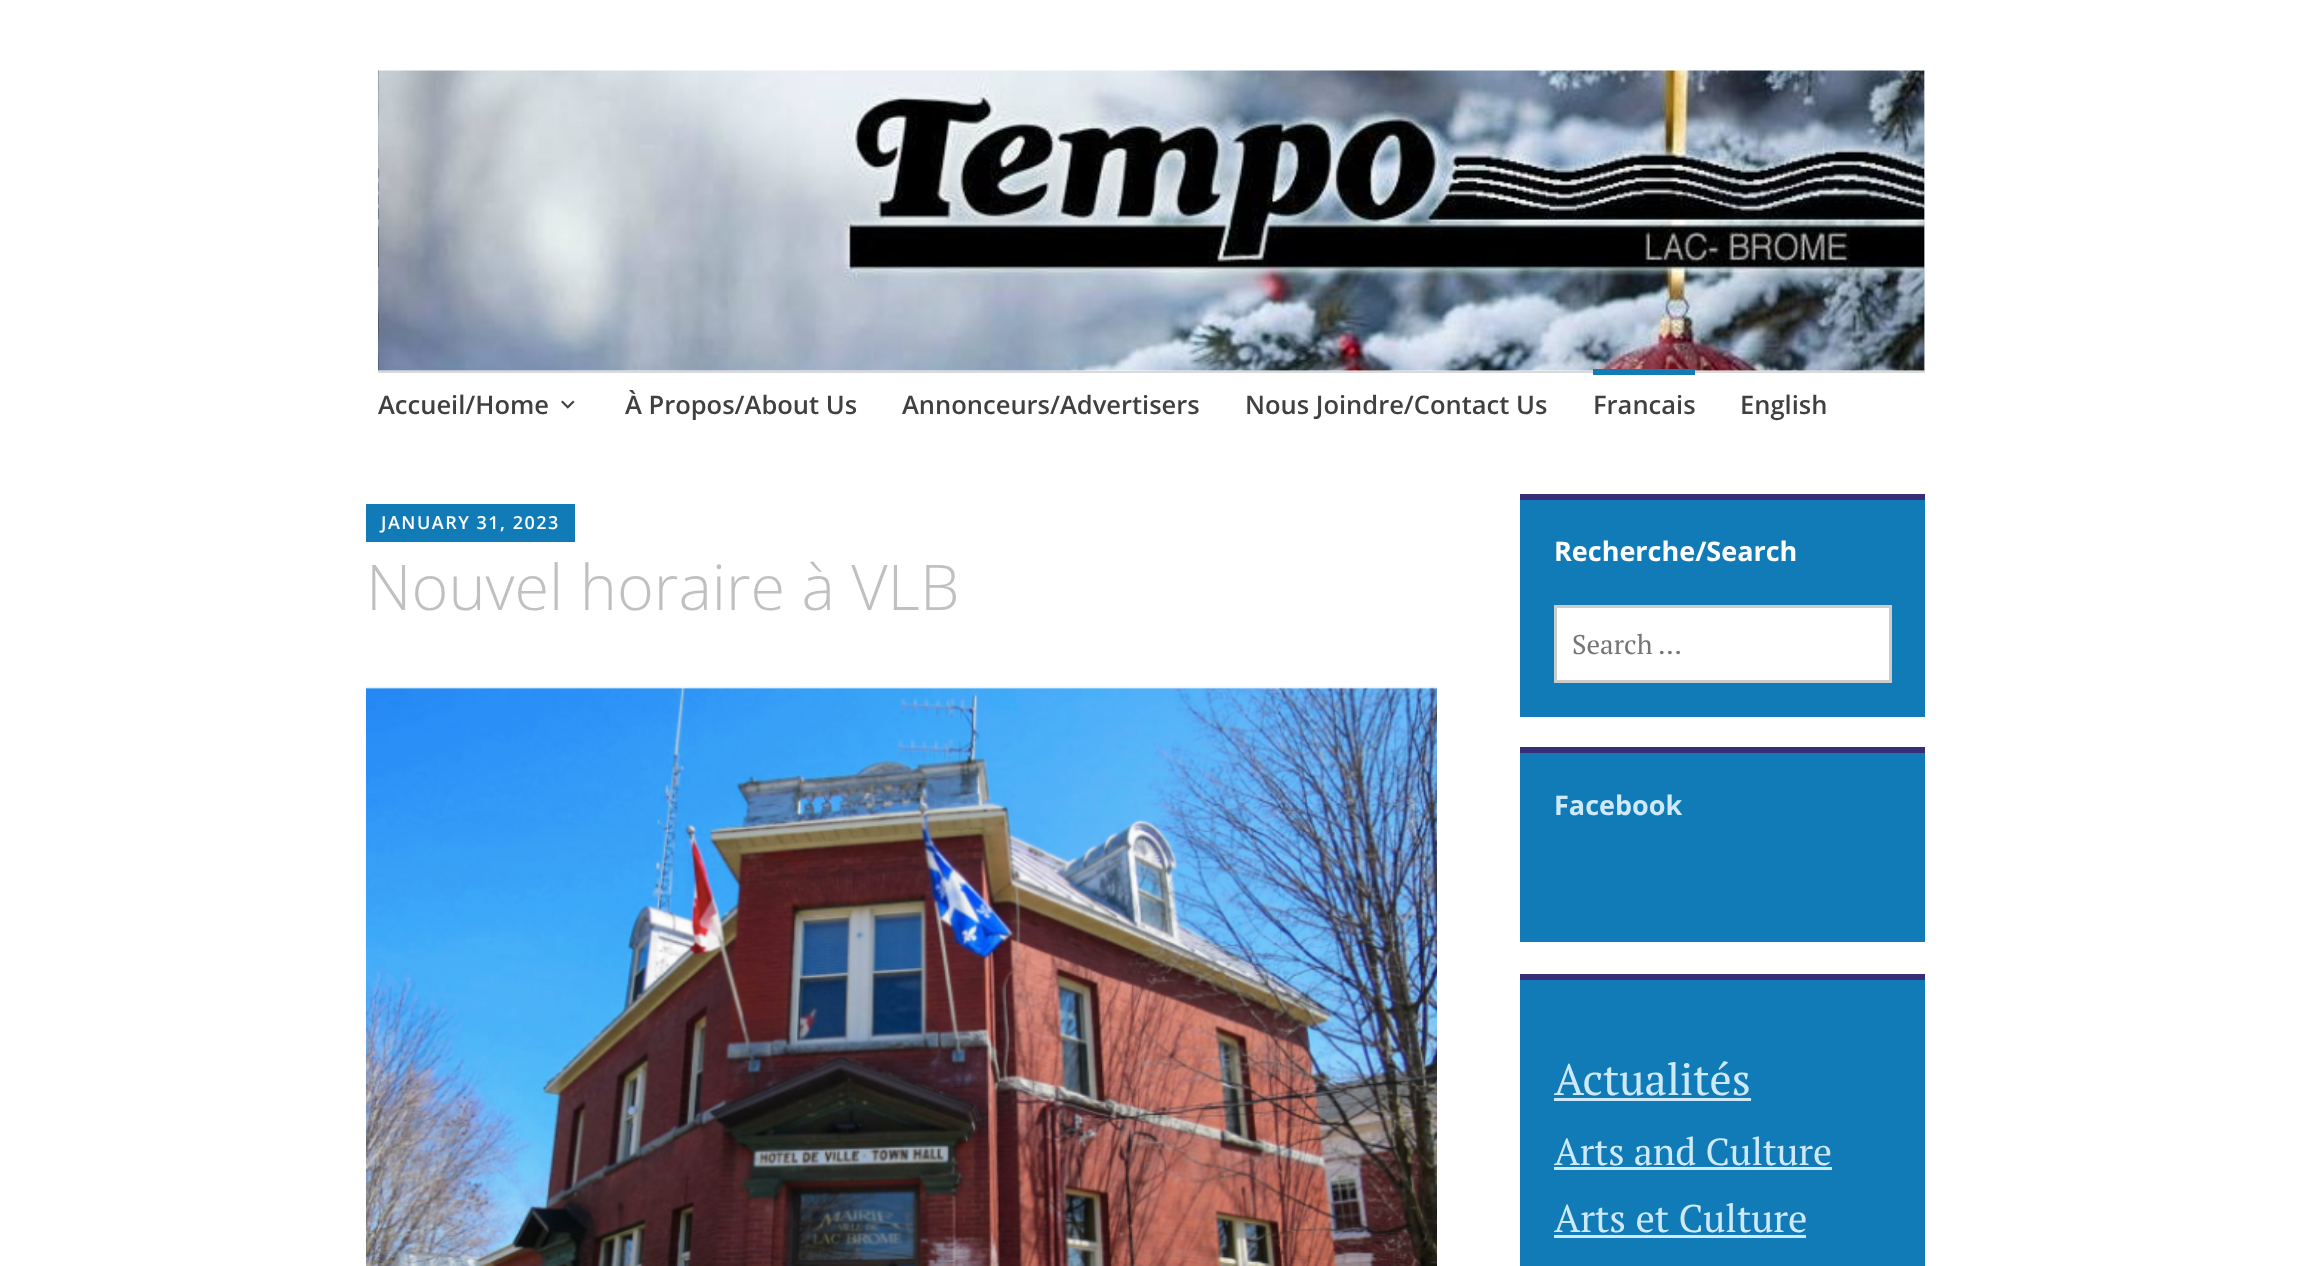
<svg xmlns="http://www.w3.org/2000/svg" width="2302" height="1266" viewBox="0 0 2302 1266">
  <rect width="100%" height="100%" fill="#ffffff"/>
  <image x="378" y="70" width="1547" height="301" href="img1.png"/>
  <rect x="378" y="371" width="1547" height="2" fill="#d9d9d9"/>
  <text x="378" y="414" font-family="Open Sans" font-size="25.5" font-weight="600" fill="#404040">Accueil/Home</text>
  <image x="561" y="400" width="14" height="9" href="img2.png"/>
  <text x="625" y="414" font-family="Open Sans" font-size="25.5" font-weight="600" fill="#404040">À Propos/About Us</text>
  <text x="902" y="414" font-family="Open Sans" font-size="25.5" font-weight="600" fill="#404040">Annonceurs/Advertisers</text>
  <text x="1245" y="414" font-family="Open Sans" font-size="25.5" font-weight="600" fill="#404040">Nous Joindre/Contact Us</text>
  <rect x="1593" y="369" width="102" height="6" fill="#117bb8"/>
  <text x="1593" y="414" font-family="Open Sans" font-size="25.5" font-weight="600" fill="#404040">Francais</text>
  <text x="1740" y="414" font-family="Open Sans" font-size="25.5" font-weight="600" fill="#404040">English</text>
  <rect x="366" y="504" width="209" height="38" fill="#117bb8"/>
  <text x="381" y="529" font-family="Open Sans" font-size="18" font-weight="600" letter-spacing="1.5" fill="#ffffff">JANUARY 31, 2023</text>
  <text x="366" y="610" font-family="Open Sans" font-size="63" font-weight="300" fill="#c0c0c0">Nouvel horaire à VLB</text>
  <image x="366" y="686" width="1071" height="580" href="img3.png"/>
  <rect x="1520" y="500" width="405" height="217" fill="#117bb8"/>
  <rect x="1520" y="494" width="405" height="6" fill="#362e77"/>
  <text x="1554" y="561" font-family="Open Sans" font-size="27" font-weight="bold" fill="#ffffff">Recherche/Search</text>
  <rect x="1555.5" y="606.5" width="335" height="75" fill="#ffffff" stroke="#cccccc" stroke-width="3"/>
  <text x="1572" y="654" font-family="PT Serif" font-size="27" fill="#757575">Search …</text>
  <rect x="1520" y="753" width="405" height="189" fill="#117bb8"/>
  <rect x="1520" y="747" width="405" height="6" fill="#362e77"/>
  <text x="1554" y="815" font-family="Open Sans" font-size="27" font-weight="bold" fill="#ceeafa">Facebook</text>
  <rect x="1520" y="980" width="405" height="286" fill="#117bb8"/>
  <rect x="1520" y="974" width="405" height="6" fill="#362e77"/>
  <text x="1554" y="1095" font-family="PT Serif" font-size="44" fill="#ceeafa">Actualités</text>
  <rect x="1554" y="1098" width="197" height="3" fill="#ceeafa"/>
  <text x="1554" y="1165" font-family="PT Serif" font-size="37.75" fill="#ceeafa">Arts and Culture</text>
  <rect x="1554" y="1167" width="278" height="3" fill="#ceeafa"/>
  <text x="1554" y="1232" font-family="PT Serif" font-size="38.5" fill="#ceeafa">Arts et Culture</text>
  <rect x="1554" y="1235" width="252" height="3" fill="#ceeafa"/>
</svg>
